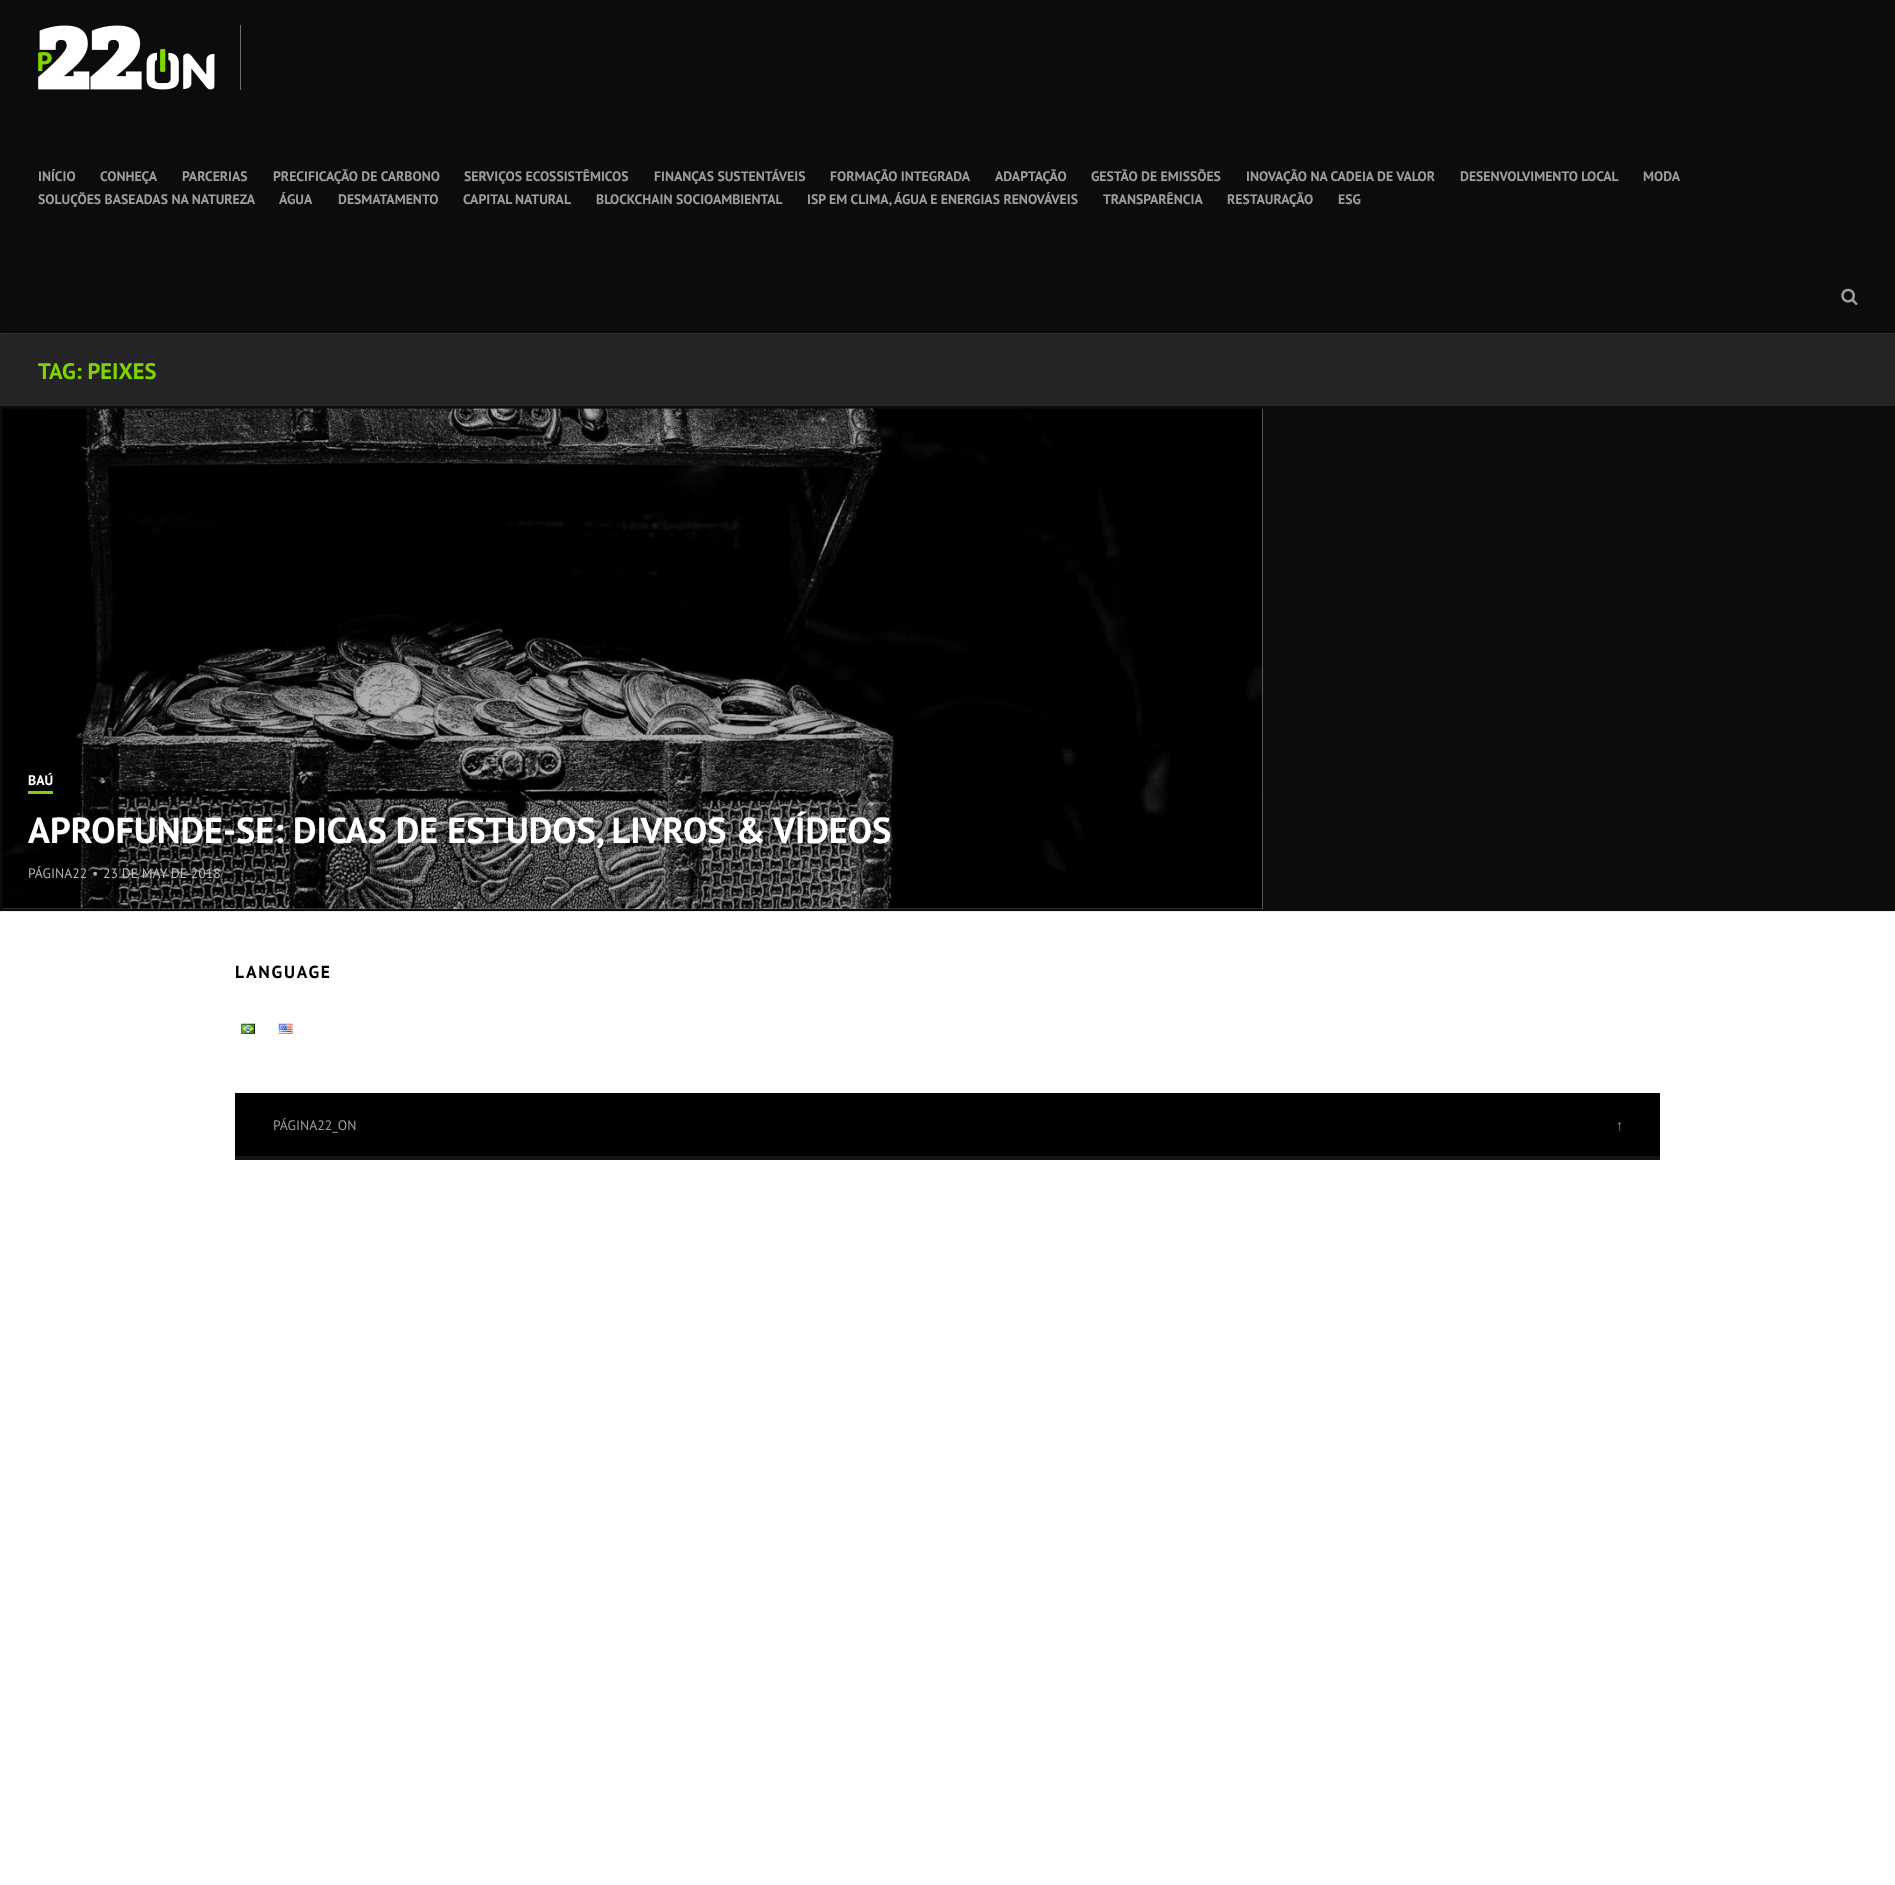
<svg xmlns="http://www.w3.org/2000/svg" width="1895" height="1885" viewBox="0 0 1895 1885">
  <defs>
    <filter id="blur1" x="-50%" y="-200%" width="200%" height="500%"><feGaussianBlur stdDeviation="1"/></filter>
  </defs>
  <rect width="100%" height="100%" fill="#ffffff"/>
  <rect x="0" y="334" width="1895" height="72" fill="#242426"/>
  <rect x="0" y="333" width="1895" height="1" fill="#3a3a3c"/>
  <rect x="1" y="0" width="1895" height="333" fill="#000000" fill-opacity="0.45" filter="url(#blur1)"/>
  <rect x="0" y="0" width="1895" height="333" fill="#0c0c0e"/>
  <rect x="240" y="25" width="1" height="65" fill="#6d6d6e"/>
  <image x="38" y="25" width="177" height="65" href="img1.png"/>
  <text x="38" y="181" font-family="PT Sans" font-size="13.75" font-weight="bold" fill="#9c9fa0">INÍCIO</text>
  <text x="100" y="181" font-family="PT Sans" font-size="13.75" font-weight="bold" fill="#9c9fa0">CONHEÇA</text>
  <text x="182" y="181" font-family="PT Sans" font-size="13.75" font-weight="bold" fill="#9c9fa0">PARCERIAS</text>
  <text x="273" y="181" font-family="PT Sans" font-size="13.75" font-weight="bold" fill="#9c9fa0">PRECIFICAÇÃO DE CARBONO</text>
  <text x="464" y="181" font-family="PT Sans" font-size="13.75" font-weight="bold" fill="#9c9fa0">SERVIÇOS ECOSSISTÊMICOS</text>
  <text x="654" y="181" font-family="PT Sans" font-size="13.75" font-weight="bold" fill="#9c9fa0">FINANÇAS SUSTENTÁVEIS</text>
  <text x="830" y="181" font-family="PT Sans" font-size="13.75" font-weight="bold" fill="#9c9fa0">FORMAÇÃO INTEGRADA</text>
  <text x="995" y="181" font-family="PT Sans" font-size="13.75" font-weight="bold" fill="#9c9fa0">ADAPTAÇÃO</text>
  <text x="1091" y="181" font-family="PT Sans" font-size="13.75" font-weight="bold" fill="#9c9fa0">GESTÃO DE EMISSÕES</text>
  <text x="1246" y="181" font-family="PT Sans" font-size="13.75" font-weight="bold" fill="#9c9fa0">INOVAÇÃO NA CADEIA DE VALOR</text>
  <text x="1460" y="181" font-family="PT Sans" font-size="13.75" font-weight="bold" fill="#9c9fa0">DESENVOLVIMENTO LOCAL</text>
  <text x="1643" y="181" font-family="PT Sans" font-size="13.75" font-weight="bold" fill="#9c9fa0">MODA</text>
  <text x="38" y="204" font-family="PT Sans" font-size="13.75" font-weight="bold" fill="#9c9fa0">SOLUÇÕES BASEADAS NA NATUREZA</text>
  <text x="279" y="204" font-family="PT Sans" font-size="13.75" font-weight="bold" fill="#9c9fa0">ÁGUA</text>
  <text x="338" y="204" font-family="PT Sans" font-size="13.75" font-weight="bold" fill="#9c9fa0">DESMATAMENTO</text>
  <text x="463" y="204" font-family="PT Sans" font-size="13.75" font-weight="bold" fill="#9c9fa0">CAPITAL NATURAL</text>
  <text x="596" y="204" font-family="PT Sans" font-size="13.75" font-weight="bold" fill="#9c9fa0">BLOCKCHAIN SOCIOAMBIENTAL</text>
  <text x="807" y="204" font-family="PT Sans" font-size="13.75" font-weight="bold" fill="#9c9fa0">ISP EM CLIMA, ÁGUA E ENERGIAS RENOVÁVEIS</text>
  <text x="1103" y="204" font-family="PT Sans" font-size="13.75" font-weight="bold" fill="#9c9fa0">TRANSPARÊNCIA</text>
  <text x="1227" y="204" font-family="PT Sans" font-size="13.75" font-weight="bold" fill="#9c9fa0">RESTAURAÇÃO</text>
  <text x="1338" y="204" font-family="PT Sans" font-size="13.75" font-weight="bold" fill="#9c9fa0">ESG</text>
  <image x="1841" y="288" width="17" height="17" href="img2.png"/>
  <text x="38" y="379" font-family="PT Sans" font-size="22.5" font-weight="bold" fill="#7ed500">TAG: PEIXES</text>
  <rect x="0" y="406" width="1895" height="505" fill="#0c0c0e"/>
  <rect x="3" y="409" width="1260" height="500" fill="#aeaeae"/>
  <image x="2" y="408" width="1261" height="501" href="img3.png"/>
  <rect x="28" y="791" width="25" height="3" fill="#7ed500"/>
  <text x="28" y="785" font-family="PT Sans" font-size="13.75" font-weight="bold" fill="#ffffff">BAÚ</text>
  <text x="28" y="843" font-family="PT Sans" font-size="36.25" font-weight="bold" fill="#ffffff">APROFUNDE-SE: DICAS DE ESTUDOS, LIVROS &amp; VÍDEOS</text>
  <text x="28" y="878" font-family="PT Sans" font-size="13.75" fill="#b3b3b3">PÁGINA22</text>
  <text x="92" y="878" font-family="PT Sans" font-size="13.75" fill="#b3b3b3">•</text>
  <text x="103" y="878" font-family="PT Sans" font-size="13.75" fill="#bebebe">23 DE MAY DE 2018</text>
  <rect x="0" y="911" width="1895" height="1" fill="#ebebeb"/>
  <text x="235" y="978" font-family="PT Sans" font-size="17.5" font-weight="bold" letter-spacing="1.75" fill="#000000">LANGUAGE</text>
  <image x="241" y="1023" width="14" height="11" href="img4.png"/>
  <image x="278" y="1023" width="15" height="11" href="img5.png"/>
  <rect x="235" y="1093" width="1425" height="63" fill="#000000"/>
  <rect x="235" y="1156" width="1425" height="4" fill="#141414"/>
  <text x="273" y="1130" font-family="PT Sans" font-size="13.75" fill="#9c9fa0">PÁGINA22_ON</text>
  <text x="1616" y="1130" font-family="Liberation Sans" font-size="13.75" fill="#9c9fa0">↑</text>
</svg>
